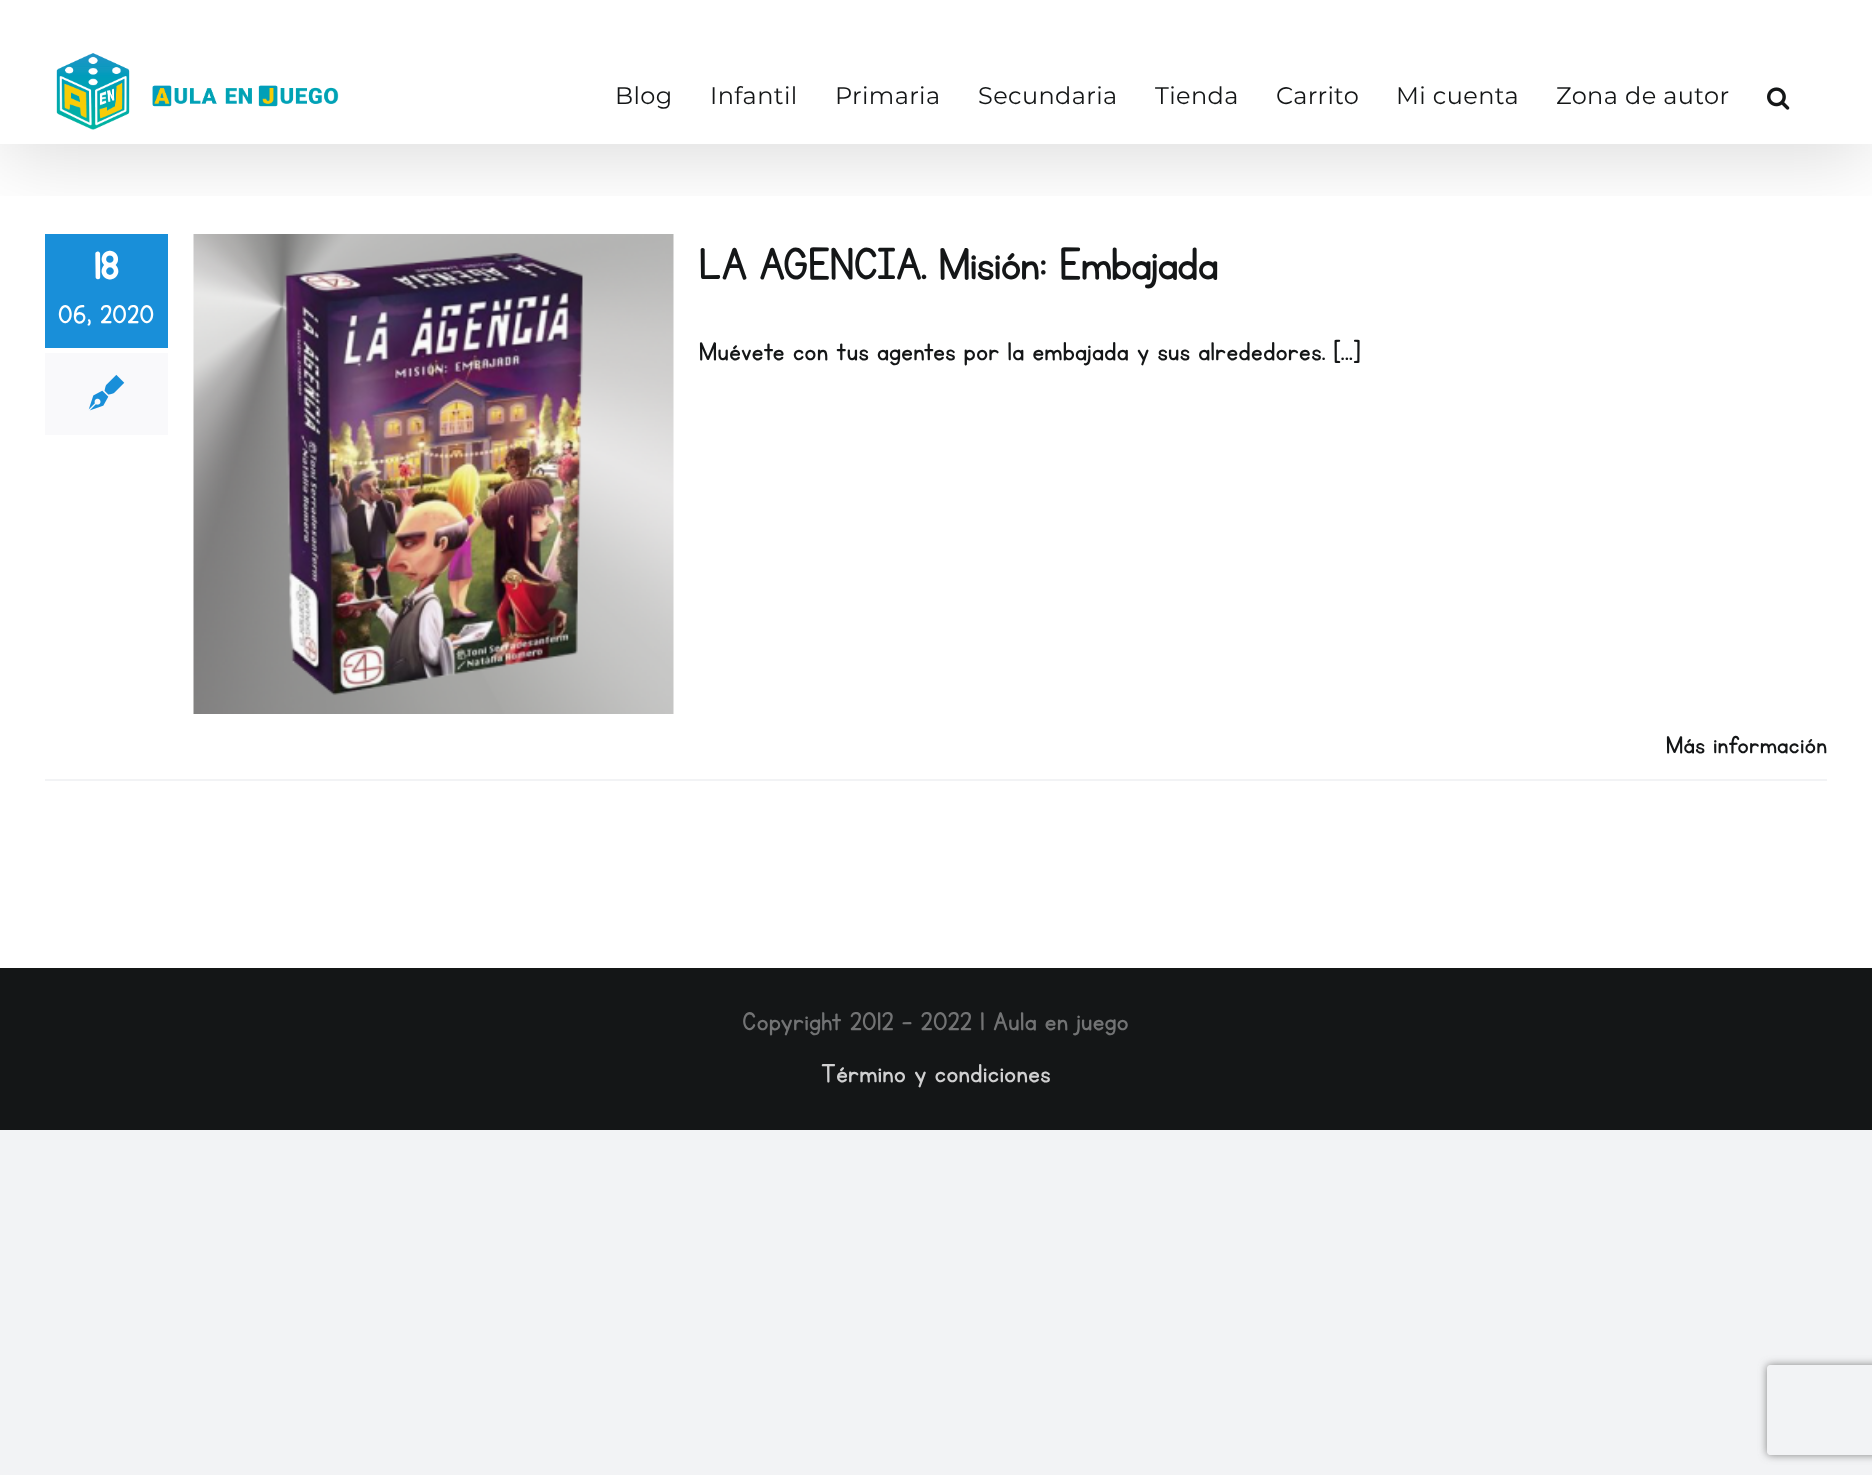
<svg xmlns="http://www.w3.org/2000/svg" width="1872" height="1475" viewBox="0 0 1872 1475">
  <defs>
    <clipPath id="clip1"><rect x="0" y="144" width="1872" height="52"/></clipPath>
    <filter id="blur1" x="-50%" y="-200%" width="200%" height="500%"><feGaussianBlur stdDeviation="37.5"/></filter>
    <clipPath id="clip2"><path d="M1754 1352H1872V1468H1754ZM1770 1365H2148C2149.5 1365 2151 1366.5 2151 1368V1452C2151 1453.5 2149.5 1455 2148 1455H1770C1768.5 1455 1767 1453.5 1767 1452V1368C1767 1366.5 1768.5 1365 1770 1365Z" clip-rule="evenodd"/></clipPath>
    <filter id="blur2" x="-50%" y="-200%" width="200%" height="500%"><feGaussianBlur stdDeviation="4"/></filter>
  </defs>
  <rect width="100%" height="100%" fill="#f2f3f5"/>
  <rect x="0" y="0" width="1872" height="968" fill="#ffffff"/>
  <rect x="45" y="234" width="123" height="114" fill="#198fd9"/>
  <image x="193" y="234" width="481" height="480" href="img4.png"/>
  <g clip-path="url(#clip1)">
    <rect x="3" y="18" width="1866" height="138" fill="#000000" fill-opacity="0.14" filter="url(#blur1)"/>
  </g>
  <image x="56" y="53" width="283" height="77" href="img1.png"/>
  <text x="615" y="104" font-family="Montserrat" font-size="24" letter-spacing="0.4" fill="#141617">Blog</text>
  <text x="710" y="104" font-family="Montserrat" font-size="24" letter-spacing="0.4" fill="#141617">Infantil</text>
  <text x="835" y="104" font-family="Montserrat" font-size="24" letter-spacing="0.4" fill="#141617">Primaria</text>
  <text x="978" y="104" font-family="Montserrat" font-size="24" letter-spacing="0.4" fill="#141617">Secundaria</text>
  <text x="1155" y="104" font-family="Montserrat" font-size="24" letter-spacing="0.4" fill="#141617">Tienda</text>
  <text x="1276" y="104" font-family="Montserrat" font-size="24" letter-spacing="0.4" fill="#141617">Carrito</text>
  <text x="1396" y="104" font-family="Montserrat" font-size="24" letter-spacing="0.4" fill="#141617">Mi cuenta</text>
  <text x="1556" y="104" font-family="Montserrat" font-size="24" letter-spacing="0.4" fill="#141617">Zona de autor</text>
  <image x="1767" y="87" width="23" height="23" href="img2.png"/>
  <text x="94" y="279" font-family="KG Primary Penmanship" font-size="44" font-weight="bold" letter-spacing="0.45" fill="#ffffff">18</text>
  <text x="58" y="323" font-family="KG Primary Penmanship" font-size="30" letter-spacing="0.45" fill="#ffffff">06, 2020</text>
  <rect x="45" y="353" width="123" height="82" fill="#f9f9fb"/>
  <image x="88" y="374" width="37" height="37" href="img3.png"/>
  <text x="699" y="279" font-family="KG Primary Penmanship" font-size="52.5" letter-spacing="-0.8" fill="#141617">LA AGENCIA. Misión: Embajada</text>
  <text x="699" y="360" font-family="KG Primary Penmanship" font-size="30" letter-spacing="0.45" fill="#141617">Muévete con tus agentes por la embajada y sus alrededores. [...]</text>
  <rect x="45" y="779" width="1782" height="2" fill="#f2f3f5"/>
  <text x="1666" y="753" font-family="KG Primary Penmanship" font-size="28.5" letter-spacing="0.45" fill="#141617">Más información</text>
  <rect x="0" y="968" width="1872" height="162" fill="#141617"/>
  <text x="742" y="1030" font-family="KG Primary Penmanship" font-size="30" letter-spacing="0.45" fill="#727374">Copyright 2012 - 2022 | Aula en juego</text>
  <text x="821" y="1082" font-family="KG Primary Penmanship" font-size="30" letter-spacing="0.45" fill="#d0d0d1">Término y condiciones</text>
  <g clip-path="url(#clip2)">
    <rect x="1767" y="1365" width="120" height="90" rx="3" fill="#808080" filter="url(#blur2)"/>
  </g>
</svg>
